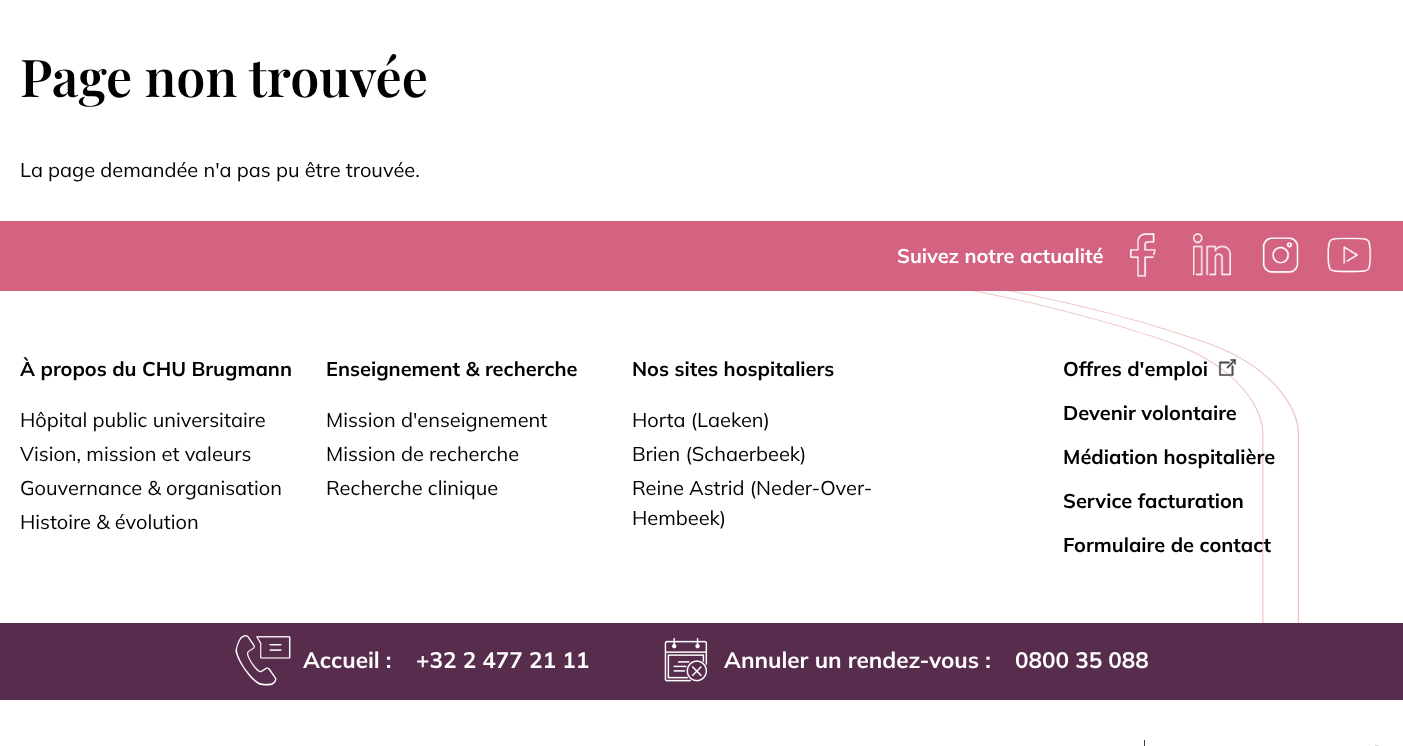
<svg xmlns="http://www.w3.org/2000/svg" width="1403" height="746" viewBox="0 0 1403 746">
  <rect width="100%" height="100%" fill="#ffffff"/>
  <text x="20" y="97" font-family="Playfair Display" font-size="52" font-weight="600" fill="#000000">Page non trouvée</text>
  <text x="20" y="177" font-family="Mulish" font-size="20" fill="#000000">La page demandée n'a pas pu être trouvée.</text>
  <rect x="0" y="221" width="1403" height="70" fill="#d36380"/>
  <text x="897" y="263" font-family="Mulish" font-size="20" font-weight="bold" fill="#ffffff">Suivez notre actualité</text>
  <image x="1130" y="233" width="26" height="44" href="img1.png"/>
  <image x="1193" y="233" width="38" height="43" href="img2.png"/>
  <image x="1262" y="237" width="37" height="37" href="img3.png"/>
  <image x="1327" y="237" width="45" height="36" href="img4.png"/>
  <image x="973" y="291" width="327" height="332" href="img5.png"/>
  <text x="20" y="376" font-family="Mulish" font-size="20" font-weight="bold" fill="#000000">À propos du CHU Brugmann</text>
  <text x="20" y="427" font-family="Mulish" font-size="20" fill="#000000">Hôpital public universitaire</text>
  <text x="20" y="461" font-family="Mulish" font-size="20" fill="#000000">Vision, mission et valeurs</text>
  <text x="20" y="495" font-family="Mulish" font-size="20" fill="#000000">Gouvernance &amp; organisation</text>
  <text x="20" y="529" font-family="Mulish" font-size="20" fill="#000000">Histoire &amp; évolution</text>
  <text x="326" y="376" font-family="Mulish" font-size="20" font-weight="bold" fill="#000000">Enseignement &amp; recherche</text>
  <text x="326" y="427" font-family="Mulish" font-size="20" fill="#000000">Mission d'enseignement</text>
  <text x="326" y="461" font-family="Mulish" font-size="20" fill="#000000">Mission de recherche</text>
  <text x="326" y="495" font-family="Mulish" font-size="20" fill="#000000">Recherche clinique</text>
  <text x="632" y="376" font-family="Mulish" font-size="20" font-weight="bold" fill="#000000">Nos sites hospitaliers</text>
  <text x="632" y="427" font-family="Mulish" font-size="20" fill="#000000">Horta (Laeken)</text>
  <text x="632" y="461" font-family="Mulish" font-size="20" fill="#000000">Brien (Schaerbeek)</text>
  <text x="632" y="495" font-family="Mulish" font-size="20" fill="#000000">Reine Astrid (Neder-Over-</text>
  <text x="632" y="525" font-family="Mulish" font-size="20" fill="#000000">Hembeek)</text>
  <text x="1063" y="376" font-family="Mulish" font-size="20" font-weight="bold" fill="#000000">Offres d'emploi</text>
  <image x="1218" y="358" width="19" height="18" href="img6.png"/>
  <text x="1063" y="420" font-family="Mulish" font-size="20" font-weight="bold" fill="#000000">Devenir volontaire</text>
  <text x="1063" y="464" font-family="Mulish" font-size="20" font-weight="bold" fill="#000000">Médiation hospitalière</text>
  <text x="1063" y="508" font-family="Mulish" font-size="20" font-weight="bold" fill="#000000">Service facturation</text>
  <text x="1063" y="552" font-family="Mulish" font-size="20" font-weight="bold" fill="#000000">Formulaire de contact</text>
  <rect x="0" y="623" width="1403" height="77" fill="#582c4d"/>
  <image x="235" y="635" width="56" height="51" href="img7.png"/>
  <text x="303" y="668" font-family="Mulish" font-size="22.5" font-weight="bold" fill="#ffffff">Accueil :</text>
  <text x="416" y="668" font-family="Mulish" font-size="22.5" font-weight="bold" fill="#ffffff">+32 2 477 21 11</text>
  <image x="664" y="637" width="44" height="45" href="img8.png"/>
  <text x="724" y="668" font-family="Mulish" font-size="22.5" font-weight="bold" fill="#ffffff">Annuler un rendez-vous :</text>
  <text x="1015" y="668" font-family="Mulish" font-size="22.5" font-weight="bold" fill="#ffffff">0800 35 088</text>
  <rect x="1144" y="740" width="1" height="6" fill="#582c4d"/>
  <image x="1375" y="745" width="4" height="1" href="img9.png"/>
</svg>
